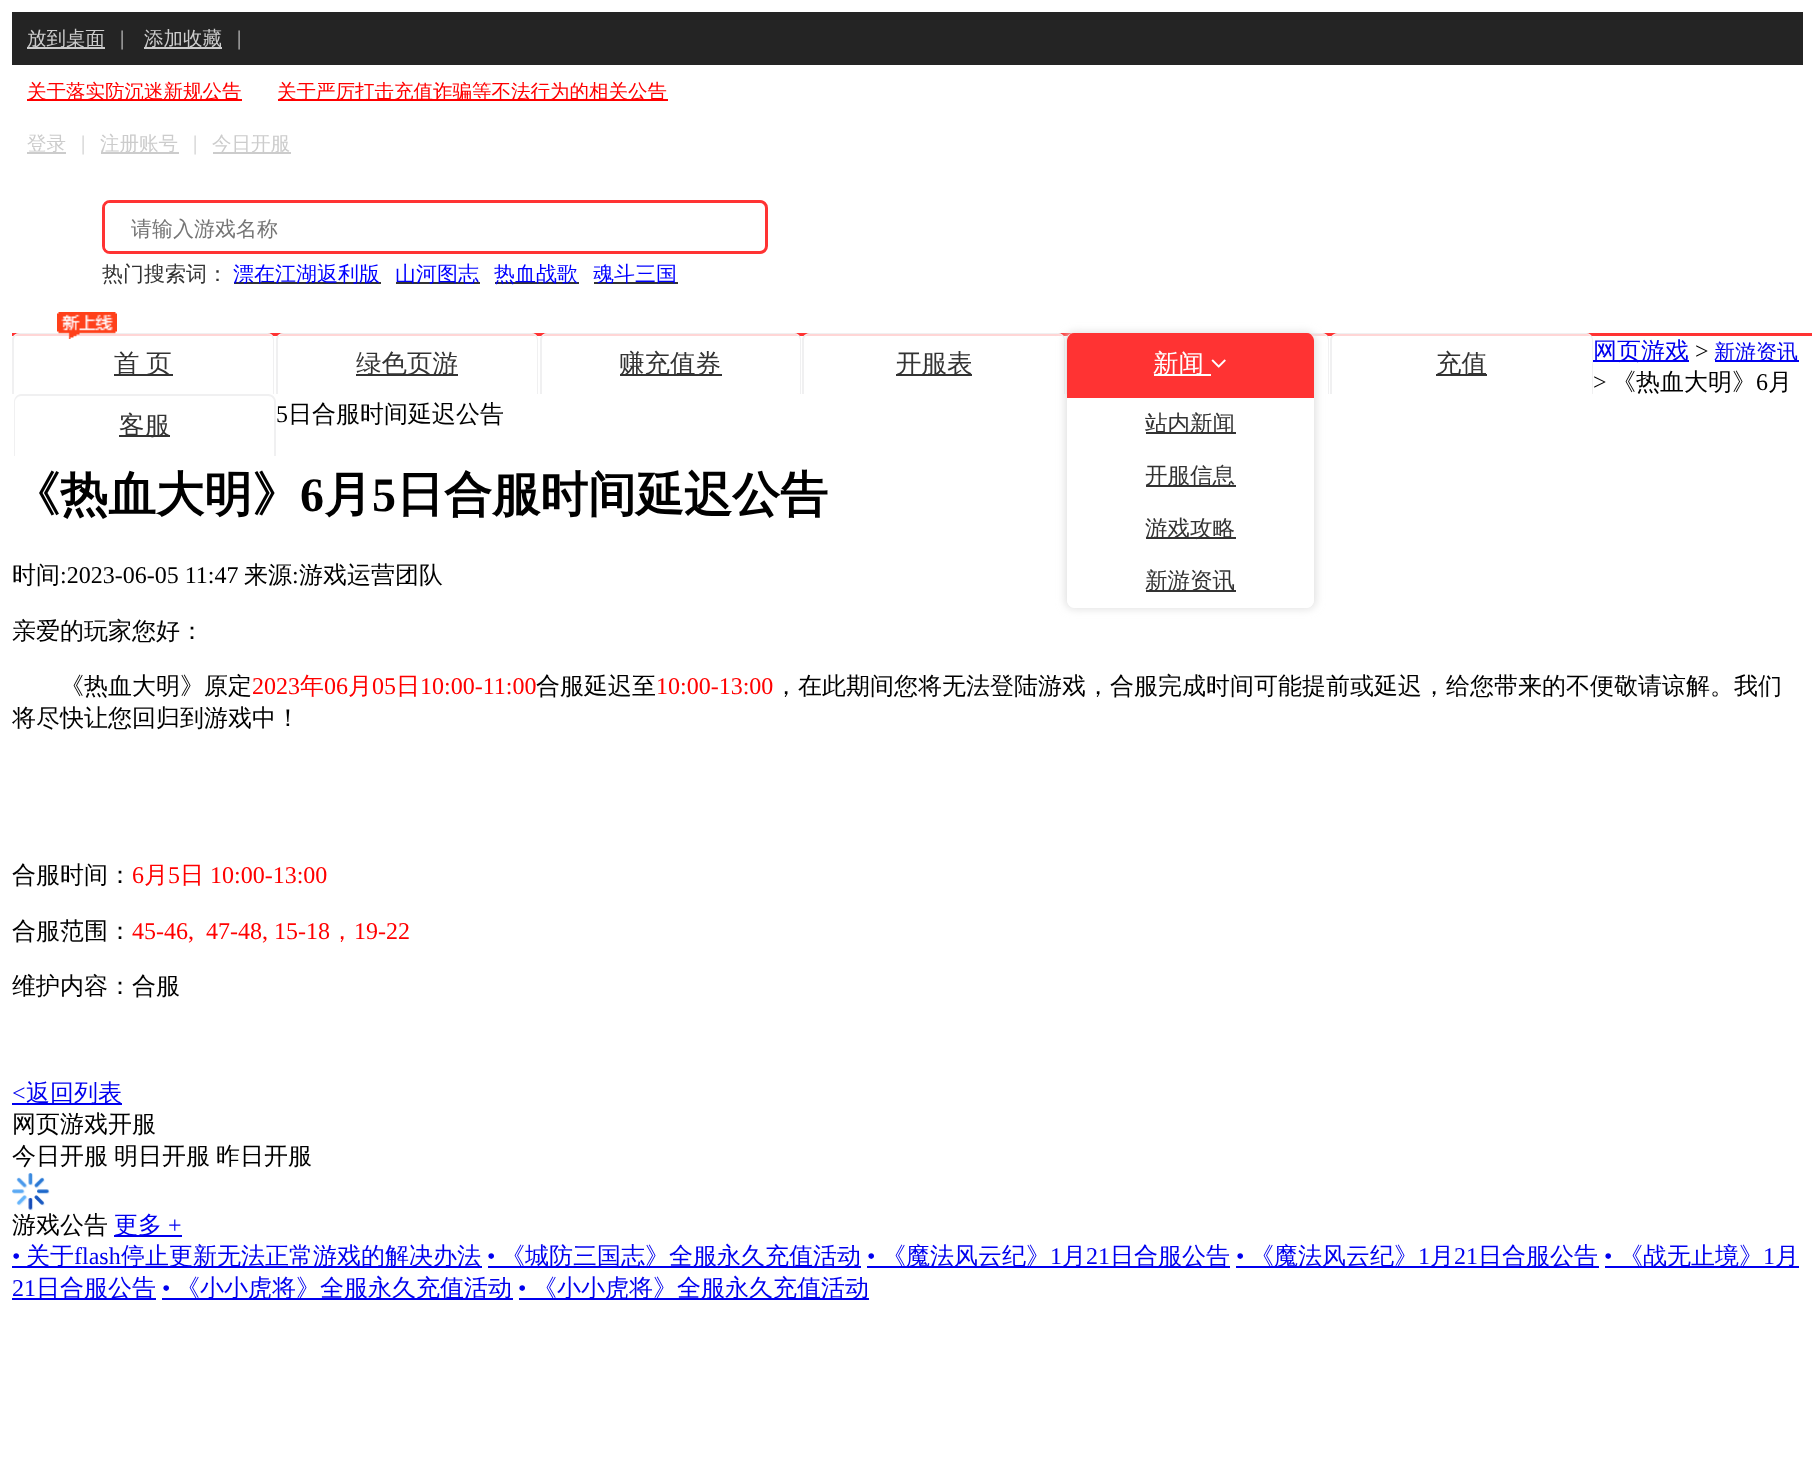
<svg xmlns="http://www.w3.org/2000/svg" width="1815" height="1459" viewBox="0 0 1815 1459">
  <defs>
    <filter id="blur1" x="-50%" y="-200%" width="200%" height="500%"><feGaussianBlur stdDeviation="4"/></filter>
    <clipPath id="clip1"><rect x="1067" y="333" width="247" height="275" rx="8"/></clipPath>
  </defs>
  <rect width="100%" height="100%" fill="#ffffff"/>
  <rect x="12" y="12" width="1791" height="53" fill="#242424"/>
  <rect x="27" y="47" width="78" height="2" fill="#cccccc"/>
  <text x="27" y="45" font-family="WenQuanYi Zen Hei" font-size="19.5" font-weight="500" fill="#cccccc">放到桌面</text>
  <text x="120" y="45" font-family="Liberation Serif" font-size="21" fill="#cccccc">|</text>
  <rect x="144" y="47" width="78" height="2" fill="#cccccc"/>
  <text x="144" y="45" font-family="WenQuanYi Zen Hei" font-size="19.5" font-weight="500" fill="#cccccc">添加收藏</text>
  <text x="237" y="45" font-family="Liberation Serif" font-size="21" fill="#cccccc">|</text>
  <rect x="27" y="99" width="215" height="2" fill="#ff0000"/>
  <text x="27" y="98" font-family="WenQuanYi Zen Hei" font-size="19.5" font-weight="500" fill="#ff0000">关于落实防沉迷新规公告</text>
  <rect x="278" y="99" width="390" height="2" fill="#ff0000"/>
  <text x="277" y="98" font-family="WenQuanYi Zen Hei" font-size="19.5" font-weight="500" fill="#ff0000">关于严厉打击充值诈骗等不法行为的相关公告</text>
  <rect x="27" y="152" width="39" height="2" fill="#cccccc"/>
  <text x="27" y="150" font-family="WenQuanYi Zen Hei" font-size="19.5" font-weight="500" fill="#cccccc">登录</text>
  <text x="81" y="150" font-family="Liberation Serif" font-size="21" fill="#cccccc">|</text>
  <rect x="101" y="152" width="78" height="2" fill="#cccccc"/>
  <text x="100" y="150" font-family="WenQuanYi Zen Hei" font-size="19.5" font-weight="500" fill="#cccccc">注册账号</text>
  <text x="193" y="150" font-family="Liberation Serif" font-size="21" fill="#cccccc">|</text>
  <rect x="213" y="152" width="78" height="2" fill="#cccccc"/>
  <text x="212" y="150" font-family="WenQuanYi Zen Hei" font-size="19.5" font-weight="500" fill="#cccccc">今日开服</text>
  <rect x="103.5" y="201.5" width="663" height="51" rx="6.5" fill="none" stroke="#ff3333" stroke-width="3"/>
  <path d="M110 203H696V251H110C107 251 105 249 105 246V208C105 205 107 203 110 203Z" fill="#ffffff"/>
  <text x="131" y="236" font-family="WenQuanYi Zen Hei" font-size="21" font-weight="500" fill="#757575">请输入游戏名称</text>
  <text x="102" y="281" font-family="WenQuanYi Zen Hei" font-size="21" font-weight="500" fill="#333333">热门搜索词：</text>
  <rect x="234" y="282" width="147" height="2" fill="#333333"/>
  <text x="233" y="281" font-family="WenQuanYi Zen Hei" font-size="21" font-weight="500" fill="#0000ff">漂在江湖返利版</text>
  <rect x="396" y="282" width="84" height="2" fill="#333333"/>
  <text x="395" y="281" font-family="WenQuanYi Zen Hei" font-size="21" font-weight="500" fill="#0000ff">山河图志</text>
  <rect x="495" y="282" width="84" height="2" fill="#333333"/>
  <text x="494" y="281" font-family="WenQuanYi Zen Hei" font-size="21" font-weight="500" fill="#0000ff">热血战歌</text>
  <rect x="594" y="282" width="84" height="2" fill="#333333"/>
  <text x="593" y="281" font-family="WenQuanYi Zen Hei" font-size="21" font-weight="500" fill="#0000ff">魂斗三国</text>
  <rect x="1593" y="360" width="96" height="2" fill="#0000ee"/>
  <text x="1593" y="359" font-family="WenQuanYi Zen Hei" font-size="24" font-weight="500" fill="#0000ee">网页游戏</text>
  <text x="1695" y="359" font-family="Liberation Serif" font-size="24" fill="#000000">&gt;</text>
  <rect x="1715" y="360" width="84" height="2" fill="#0000ee"/>
  <text x="1714" y="359" font-family="WenQuanYi Zen Hei" font-size="21" font-weight="500" fill="#0000ee">新游资讯</text>
  <text x="1593" y="390" font-family="Liberation Serif" font-size="24" fill="#000000">&gt;</text>
  <text x="1612" y="390" font-family="WenQuanYi Zen Hei" font-size="24" font-weight="500" fill="#000000">《热血大明》</text>
  <text x="1756" y="390" font-family="Liberation Serif" font-size="24" fill="#000000">6</text>
  <text x="1768" y="390" font-family="WenQuanYi Zen Hei" font-size="24" font-weight="500" fill="#000000">月</text>
  <text x="276" y="422" font-family="Liberation Serif" font-size="24" fill="#000000">5</text>
  <text x="288" y="422" font-family="WenQuanYi Zen Hei" font-size="24" font-weight="500" fill="#000000">日合服时间延迟公告</text>
  <text x="12" y="511" font-family="WenQuanYi Zen Hei" font-size="48" font-weight="bold" fill="#000000">《热血大明》</text>
  <text x="300" y="511" font-family="Liberation Serif" font-size="48" font-weight="bold" fill="#000000">6</text>
  <text x="324" y="511" font-family="WenQuanYi Zen Hei" font-size="48" font-weight="bold" fill="#000000">月</text>
  <text x="372" y="511" font-family="Liberation Serif" font-size="48" font-weight="bold" fill="#000000">5</text>
  <text x="396" y="511" font-family="WenQuanYi Zen Hei" font-size="48" font-weight="bold" fill="#000000">日合服时间延迟公告</text>
  <text x="12" y="583" font-family="WenQuanYi Zen Hei" font-size="24" font-weight="500" fill="#000000">时间</text>
  <text x="60" y="583" font-family="Liberation Serif" font-size="24" fill="#000000">:2023-06-05 11:47</text>
  <text x="244" y="583" font-family="WenQuanYi Zen Hei" font-size="24" font-weight="500" fill="#000000">来源</text>
  <text x="292" y="583" font-family="Liberation Serif" font-size="24" fill="#000000">:</text>
  <text x="299" y="583" font-family="WenQuanYi Zen Hei" font-size="24" font-weight="500" fill="#000000">游戏运营团队</text>
  <text x="12" y="639" font-family="WenQuanYi Zen Hei" font-size="24" font-weight="500" fill="#000000">亲爱的玩家您好：</text>
  <text x="60" y="694" font-family="WenQuanYi Zen Hei" font-size="24" font-weight="500" fill="#000000">《热血大明》原定</text>
  <text x="252" y="694" font-family="Liberation Serif" font-size="24" fill="#ff0000">2023</text>
  <text x="300" y="694" font-family="WenQuanYi Zen Hei" font-size="24" font-weight="500" fill="#ff0000">年</text>
  <text x="324" y="694" font-family="Liberation Serif" font-size="24" fill="#ff0000">06</text>
  <text x="348" y="694" font-family="WenQuanYi Zen Hei" font-size="24" font-weight="500" fill="#ff0000">月</text>
  <text x="372" y="694" font-family="Liberation Serif" font-size="24" fill="#ff0000">05</text>
  <text x="396" y="694" font-family="WenQuanYi Zen Hei" font-size="24" font-weight="500" fill="#ff0000">日</text>
  <text x="420" y="694" font-family="Liberation Serif" font-size="24" fill="#ff0000">10:00-11:00</text>
  <text x="536" y="694" font-family="WenQuanYi Zen Hei" font-size="24" font-weight="500" fill="#000000">合服延迟至</text>
  <text x="656" y="694" font-family="Liberation Serif" font-size="24" fill="#ff0000">10:00-13:00</text>
  <text x="774" y="694" font-family="WenQuanYi Zen Hei" font-size="24" font-weight="500" fill="#000000">，在此期间您将无法登陆游戏，合服完成时间可能提前或延迟，给您带来的不便敬请谅解。我们</text>
  <text x="12" y="726" font-family="WenQuanYi Zen Hei" font-size="24" font-weight="500" fill="#000000">将尽快让您回归到游戏中！</text>
  <text x="12" y="883" font-family="WenQuanYi Zen Hei" font-size="24" font-weight="500" fill="#000000">合服时间：</text>
  <text x="132" y="883" font-family="Liberation Serif" font-size="24" fill="#ff0000">6</text>
  <text x="144" y="883" font-family="WenQuanYi Zen Hei" font-size="24" font-weight="500" fill="#ff0000">月</text>
  <text x="168" y="883" font-family="Liberation Serif" font-size="24" fill="#ff0000">5</text>
  <text x="180" y="883" font-family="WenQuanYi Zen Hei" font-size="24" font-weight="500" fill="#ff0000">日</text>
  <text x="210" y="883" font-family="Liberation Serif" font-size="24" fill="#ff0000">10:00-13:00</text>
  <text x="12" y="939" font-family="WenQuanYi Zen Hei" font-size="24" font-weight="500" fill="#000000">合服范围：</text>
  <text x="132" y="939" font-family="Liberation Serif" font-size="24" fill="#ff0000" xml:space="preserve">45-46,  47-48, 15-18</text>
  <text x="330" y="939" font-family="WenQuanYi Zen Hei" font-size="24" font-weight="500" fill="#ff0000">，</text>
  <text x="354" y="939" font-family="Liberation Serif" font-size="24" fill="#ff0000">19-22</text>
  <text x="12" y="994" font-family="WenQuanYi Zen Hei" font-size="24" font-weight="500" fill="#000000">维护内容：合服</text>
  <text x="12" y="1101" font-family="Liberation Serif" font-size="24" fill="#0000ee">&lt;</text>
  <rect x="12" y="1103" width="110" height="2" fill="#0000ee"/>
  <text x="26" y="1101" font-family="WenQuanYi Zen Hei" font-size="24" font-weight="500" fill="#0000ee">返回列表</text>
  <text x="12" y="1132" font-family="WenQuanYi Zen Hei" font-size="24" font-weight="500" fill="#000000">网页游戏开服</text>
  <text x="12" y="1164" font-family="WenQuanYi Zen Hei" font-size="24" font-weight="500" fill="#000000">今日开服</text>
  <text x="114" y="1164" font-family="WenQuanYi Zen Hei" font-size="24" font-weight="500" fill="#000000">明日开服</text>
  <text x="216" y="1164" font-family="WenQuanYi Zen Hei" font-size="24" font-weight="500" fill="#000000">昨日开服</text>
  <image x="12" y="1173" width="38" height="38" href="img1.png"/>
  <text x="12" y="1233" font-family="WenQuanYi Zen Hei" font-size="24" font-weight="500" fill="#000000">游戏公告</text>
  <rect x="114" y="1235" width="68" height="2" fill="#0000ee"/>
  <text x="114" y="1233" font-family="WenQuanYi Zen Hei" font-size="24" font-weight="500" fill="#0000ee">更多</text>
  <text x="168" y="1233" font-family="Liberation Serif" font-size="24" fill="#0000ee">+</text>
  <text x="12" y="1264" font-family="Liberation Serif" font-size="24" fill="#0000ee">•</text>
  <rect x="12" y="1266" width="470" height="2" fill="#0000ee"/>
  <text x="26" y="1264" font-family="WenQuanYi Zen Hei" font-size="24" font-weight="500" fill="#0000ee">关于</text>
  <text x="74" y="1264" font-family="Liberation Serif" font-size="24" fill="#0000ee">flash</text>
  <text x="121" y="1264" font-family="WenQuanYi Zen Hei" font-size="24" font-weight="500" fill="#0000ee">停止更新无法正常游戏的解决办法</text>
  <text x="487" y="1264" font-family="Liberation Serif" font-size="24" fill="#0000ee">•</text>
  <rect x="488" y="1266" width="373" height="2" fill="#0000ee"/>
  <text x="501" y="1264" font-family="WenQuanYi Zen Hei" font-size="24" font-weight="500" fill="#0000ee">《城防三国志》全服永久充值活动</text>
  <text x="867" y="1264" font-family="Liberation Serif" font-size="24" fill="#0000ee">•</text>
  <rect x="867" y="1266" width="363" height="2" fill="#0000ee"/>
  <text x="882" y="1264" font-family="WenQuanYi Zen Hei" font-size="24" font-weight="500" fill="#0000ee">《魔法风云纪》</text>
  <text x="1050" y="1264" font-family="Liberation Serif" font-size="24" fill="#0000ee">1</text>
  <text x="1062" y="1264" font-family="WenQuanYi Zen Hei" font-size="24" font-weight="500" fill="#0000ee">月</text>
  <text x="1086" y="1264" font-family="Liberation Serif" font-size="24" fill="#0000ee">21</text>
  <text x="1110" y="1264" font-family="WenQuanYi Zen Hei" font-size="24" font-weight="500" fill="#0000ee">日合服公告</text>
  <text x="1236" y="1264" font-family="Liberation Serif" font-size="24" fill="#0000ee">•</text>
  <rect x="1236" y="1266" width="363" height="2" fill="#0000ee"/>
  <text x="1250" y="1264" font-family="WenQuanYi Zen Hei" font-size="24" font-weight="500" fill="#0000ee">《魔法风云纪》</text>
  <text x="1418" y="1264" font-family="Liberation Serif" font-size="24" fill="#0000ee">1</text>
  <text x="1430" y="1264" font-family="WenQuanYi Zen Hei" font-size="24" font-weight="500" fill="#0000ee">月</text>
  <text x="1454" y="1264" font-family="Liberation Serif" font-size="24" fill="#0000ee">21</text>
  <text x="1478" y="1264" font-family="WenQuanYi Zen Hei" font-size="24" font-weight="500" fill="#0000ee">日合服公告</text>
  <text x="1604" y="1264" font-family="Liberation Serif" font-size="24" fill="#0000ee">•</text>
  <rect x="1605" y="1266" width="194" height="2" fill="#0000ee"/>
  <text x="1619" y="1264" font-family="WenQuanYi Zen Hei" font-size="24" font-weight="500" fill="#0000ee">《战无止境》</text>
  <text x="1763" y="1264" font-family="Liberation Serif" font-size="24" fill="#0000ee">1</text>
  <text x="1775" y="1264" font-family="WenQuanYi Zen Hei" font-size="24" font-weight="500" fill="#0000ee">月</text>
  <text x="12" y="1296" font-family="Liberation Serif" font-size="24" fill="#0000ee">21</text>
  <rect x="12" y="1298" width="144" height="2" fill="#0000ee"/>
  <text x="36" y="1296" font-family="WenQuanYi Zen Hei" font-size="24" font-weight="500" fill="#0000ee">日合服公告</text>
  <text x="162" y="1296" font-family="Liberation Serif" font-size="24" fill="#0000ee">•</text>
  <rect x="162" y="1298" width="351" height="2" fill="#0000ee"/>
  <text x="176" y="1296" font-family="WenQuanYi Zen Hei" font-size="24" font-weight="500" fill="#0000ee">《小小虎将》全服永久充值活动</text>
  <text x="518" y="1296" font-family="Liberation Serif" font-size="24" fill="#0000ee">•</text>
  <rect x="519" y="1298" width="350" height="2" fill="#0000ee"/>
  <text x="533" y="1296" font-family="WenQuanYi Zen Hei" font-size="24" font-weight="500" fill="#0000ee">《小小虎将》全服永久充值活动</text>
  <rect x="12" y="333" width="1800" height="3" fill="#ff3333"/>
  <path d="M548 333H793C797.5 333 801 336.5 801 341V395H540V341C540 336.5 543.5 333 548 333Z" fill="#ffffff" fill-opacity="0.8"/>
  <path d="M548 333H794C798 333 801 336 801 340V394H540V340C540 336 543 333 548 333ZM548 334H794C797 334 800 337 800 340V394H542V340C542 337 544 334 548 334Z" fill="#f0f0f1" fill-rule="evenodd"/>
  <path d="M20 333H267C271.5 333 275 336.5 275 341V395H12V341C12 336.5 15.5 333 20 333Z" fill="#ffffff" fill-opacity="0.8"/>
  <path d="M20 333H267C271 333 274 336 274 340V394H12V340C12 336 15 333 20 333ZM20 334H267C270 334 273 337 273 340V394H14V340C14 337 16 334 20 334Z" fill="#f0f0f1" fill-rule="evenodd"/>
  <image x="57" y="312" width="60" height="27" href="img2.png"/>
  <rect x="620" y="374" width="102" height="2" fill="#333333"/>
  <text x="619" y="372" font-family="WenQuanYi Zen Hei" font-size="25.5" font-weight="500" fill="#333333">赚充值券</text>
  <path d="M1075 333H1321C1325.5 333 1329 336.5 1329 341V395H1067V341C1067 336.5 1070.5 333 1075 333Z" fill="#ffffff" fill-opacity="0.8"/>
  <path d="M1074 333H1322C1326 333 1329 336 1329 340V394H1066V340C1066 336 1070 333 1074 333ZM1074 334H1322C1325 334 1328 337 1328 340V394H1068V340C1068 337 1071 334 1074 334Z" fill="#f0f0f1" fill-rule="evenodd"/>
  <rect x="114" y="374" width="59" height="2" fill="#333333"/>
  <text x="114" y="372" word-spacing="-1" font-family="WenQuanYi Zen Hei" font-size="25.5" font-weight="500" fill="#333333">首 页</text>
  <path d="M284 333H531C535.5 333 539 336.5 539 341V395H276V341C276 336.5 279.5 333 284 333Z" fill="#ffffff" fill-opacity="0.8"/>
  <path d="M284 333H531C535 333 538 336 538 340V394H276V340C276 336 279 333 284 333ZM284 334H531C534 334 537 337 537 340V394H278V340C278 337 280 334 284 334Z" fill="#f0f0f1" fill-rule="evenodd"/>
  <rect x="356" y="374" width="102" height="2" fill="#333333"/>
  <text x="356" y="372" font-family="WenQuanYi Zen Hei" font-size="25.5" font-weight="500" fill="#333333">绿色页游</text>
  <path d="M811 333H1057C1061.5 333 1065 336.5 1065 341V395H803V341C803 336.5 806.5 333 811 333Z" fill="#ffffff" fill-opacity="0.8"/>
  <path d="M810 333H1058C1062 333 1065 336 1065 340V394H802V340C802 336 806 333 810 333ZM810 334H1058C1061 334 1064 337 1064 340V394H804V340C804 337 807 334 810 334Z" fill="#f0f0f1" fill-rule="evenodd"/>
  <rect x="896" y="374" width="76" height="2" fill="#333333"/>
  <text x="896" y="372" font-family="WenQuanYi Zen Hei" font-size="25.5" font-weight="500" fill="#333333">开服表</text>
  <rect x="1065" y="332" width="251" height="277" rx="9" fill="#e0e0e0" filter="url(#blur1)"/>
  <rect x="1067" y="333" width="247" height="275" rx="8" fill="#ffffff"/>
  <path d="M1075 333H1306C1310.5 333 1314 336.5 1314 341V398H1067V341C1067 336.5 1070.5 333 1075 333Z" fill="#ff3333"/>
  <g clip-path="url(#clip1)">
    <rect x="1067" y="333" width="247" height="2" fill="#ff3333"/>
  </g>
  <rect x="1154" y="374" width="57" height="2" fill="#ffffff"/>
  <text x="1153" y="372" font-family="WenQuanYi Zen Hei" font-size="25.5" font-weight="500" fill="#ffffff">新闻</text>
  <image x="1211" y="359" width="15" height="9" href="img3.png"/>
  <rect x="1146" y="432" width="90" height="2" fill="#333333"/>
  <text x="1145" y="431" font-family="WenQuanYi Zen Hei" font-size="22.5" font-weight="500" fill="#333333">站内新闻</text>
  <rect x="1146" y="485" width="90" height="2" fill="#333333"/>
  <text x="1145" y="483" font-family="WenQuanYi Zen Hei" font-size="22.5" font-weight="500" fill="#333333">开服信息</text>
  <rect x="1146" y="537" width="90" height="2" fill="#333333"/>
  <text x="1145" y="536" font-family="WenQuanYi Zen Hei" font-size="22.5" font-weight="500" fill="#333333">游戏攻略</text>
  <path d="M1067 555H1314V600C1314 604.5 1310.5 608 1306 608H1075C1070.5 608 1067 604.5 1067 600Z" fill="#ffffff" fill-opacity="0.8"/>
  <rect x="1146" y="590" width="90" height="2" fill="#333333"/>
  <text x="1145" y="588" font-family="WenQuanYi Zen Hei" font-size="22.5" font-weight="500" fill="#333333">新游资讯</text>
  <path d="M1339 333H1585C1589.5 333 1593 336.5 1593 341V395H1331V341C1331 336.5 1334.5 333 1339 333Z" fill="#ffffff" fill-opacity="0.8"/>
  <path d="M1338 333H1586C1590 333 1593 336 1593 340V394H1330V340C1330 336 1334 333 1338 333ZM1338 334H1586C1589 334 1592 337 1592 340V394H1332V340C1332 337 1335 334 1338 334Z" fill="#f0f0f1" fill-rule="evenodd"/>
  <rect x="1436" y="374" width="51" height="2" fill="#333333"/>
  <text x="1436" y="372" font-family="WenQuanYi Zen Hei" font-size="25.5" font-weight="500" fill="#333333">充值</text>
  <path d="M21 394H268C273 394 276 398 276 402V456H14V402C14 398 17 394 21 394ZM21 396H268C272 396 274 399 274 402V456H15V402C15 399 18 396 21 396Z" fill="#f0f0f1" fill-rule="evenodd"/>
  <rect x="119" y="435" width="51" height="2" fill="#333333"/>
  <text x="119" y="434" font-family="WenQuanYi Zen Hei" font-size="25.5" font-weight="500" fill="#333333">客服</text>
</svg>
